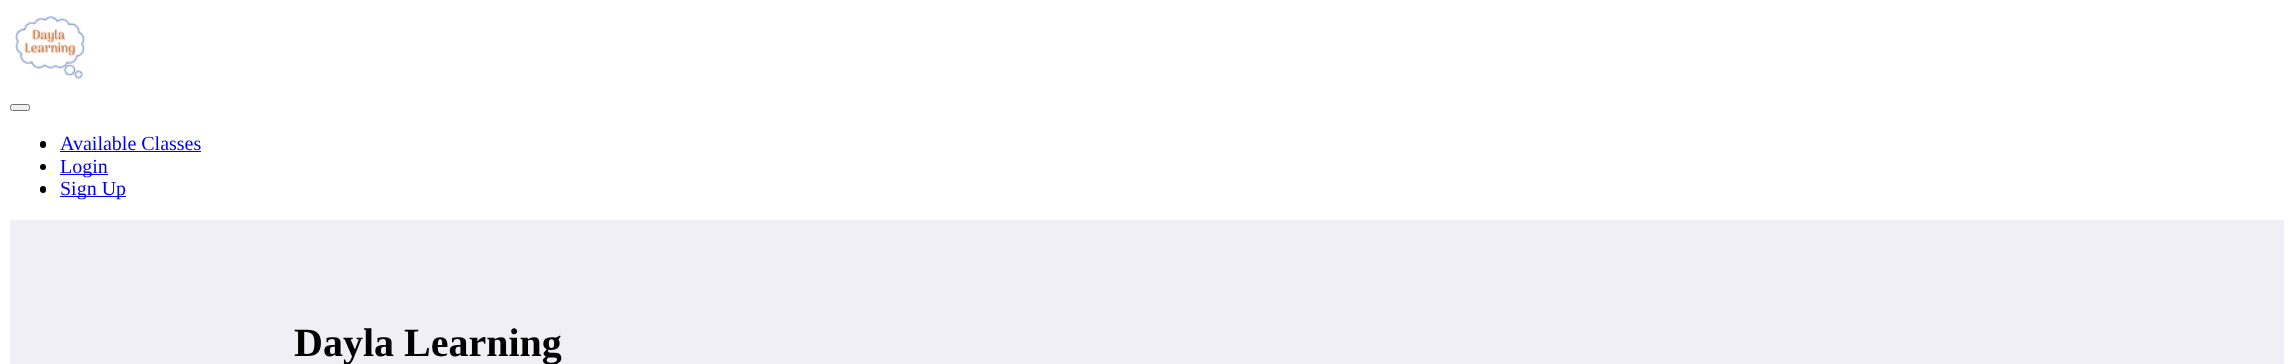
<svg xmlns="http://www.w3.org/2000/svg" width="2293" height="364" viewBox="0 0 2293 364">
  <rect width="100%" height="100%" fill="#ffffff"/>
  <image x="15" y="16" width="71" height="63" href="img1.png"/>
  <rect x="10.5" y="104.5" width="19" height="6" rx="2" fill="#efefef" stroke="#767676"/>
  <rect x="40" y="141" width="6" height="7" rx="3" fill="#000000"/>
  <text x="60" y="150" font-family="Liberation Serif" font-size="20" fill="#0000ee">Available Classes</text>
  <rect x="60" y="151" width="141" height="1" fill="#0000ee"/>
  <circle cx="43" cy="167" r="3" fill="#000000"/>
  <rect x="60" y="174" width="48" height="1" fill="#0000ee"/>
  <text x="60" y="173" font-family="Liberation Serif" font-size="20" fill="#0000ee">Login</text>
  <rect x="40" y="186" width="6" height="7" rx="3" fill="#000000"/>
  <rect x="60" y="196" width="66" height="1" fill="#0000ee"/>
  <text x="60" y="195" font-family="Liberation Serif" font-size="20" fill="#0000ee">Sign Up</text>
  <rect x="10" y="220" width="2274" height="144" fill="#efeff5"/>
  <text x="294" y="356" font-family="Liberation Serif" font-size="40" font-weight="bold" fill="#000000">Dayla Learning</text>
</svg>
